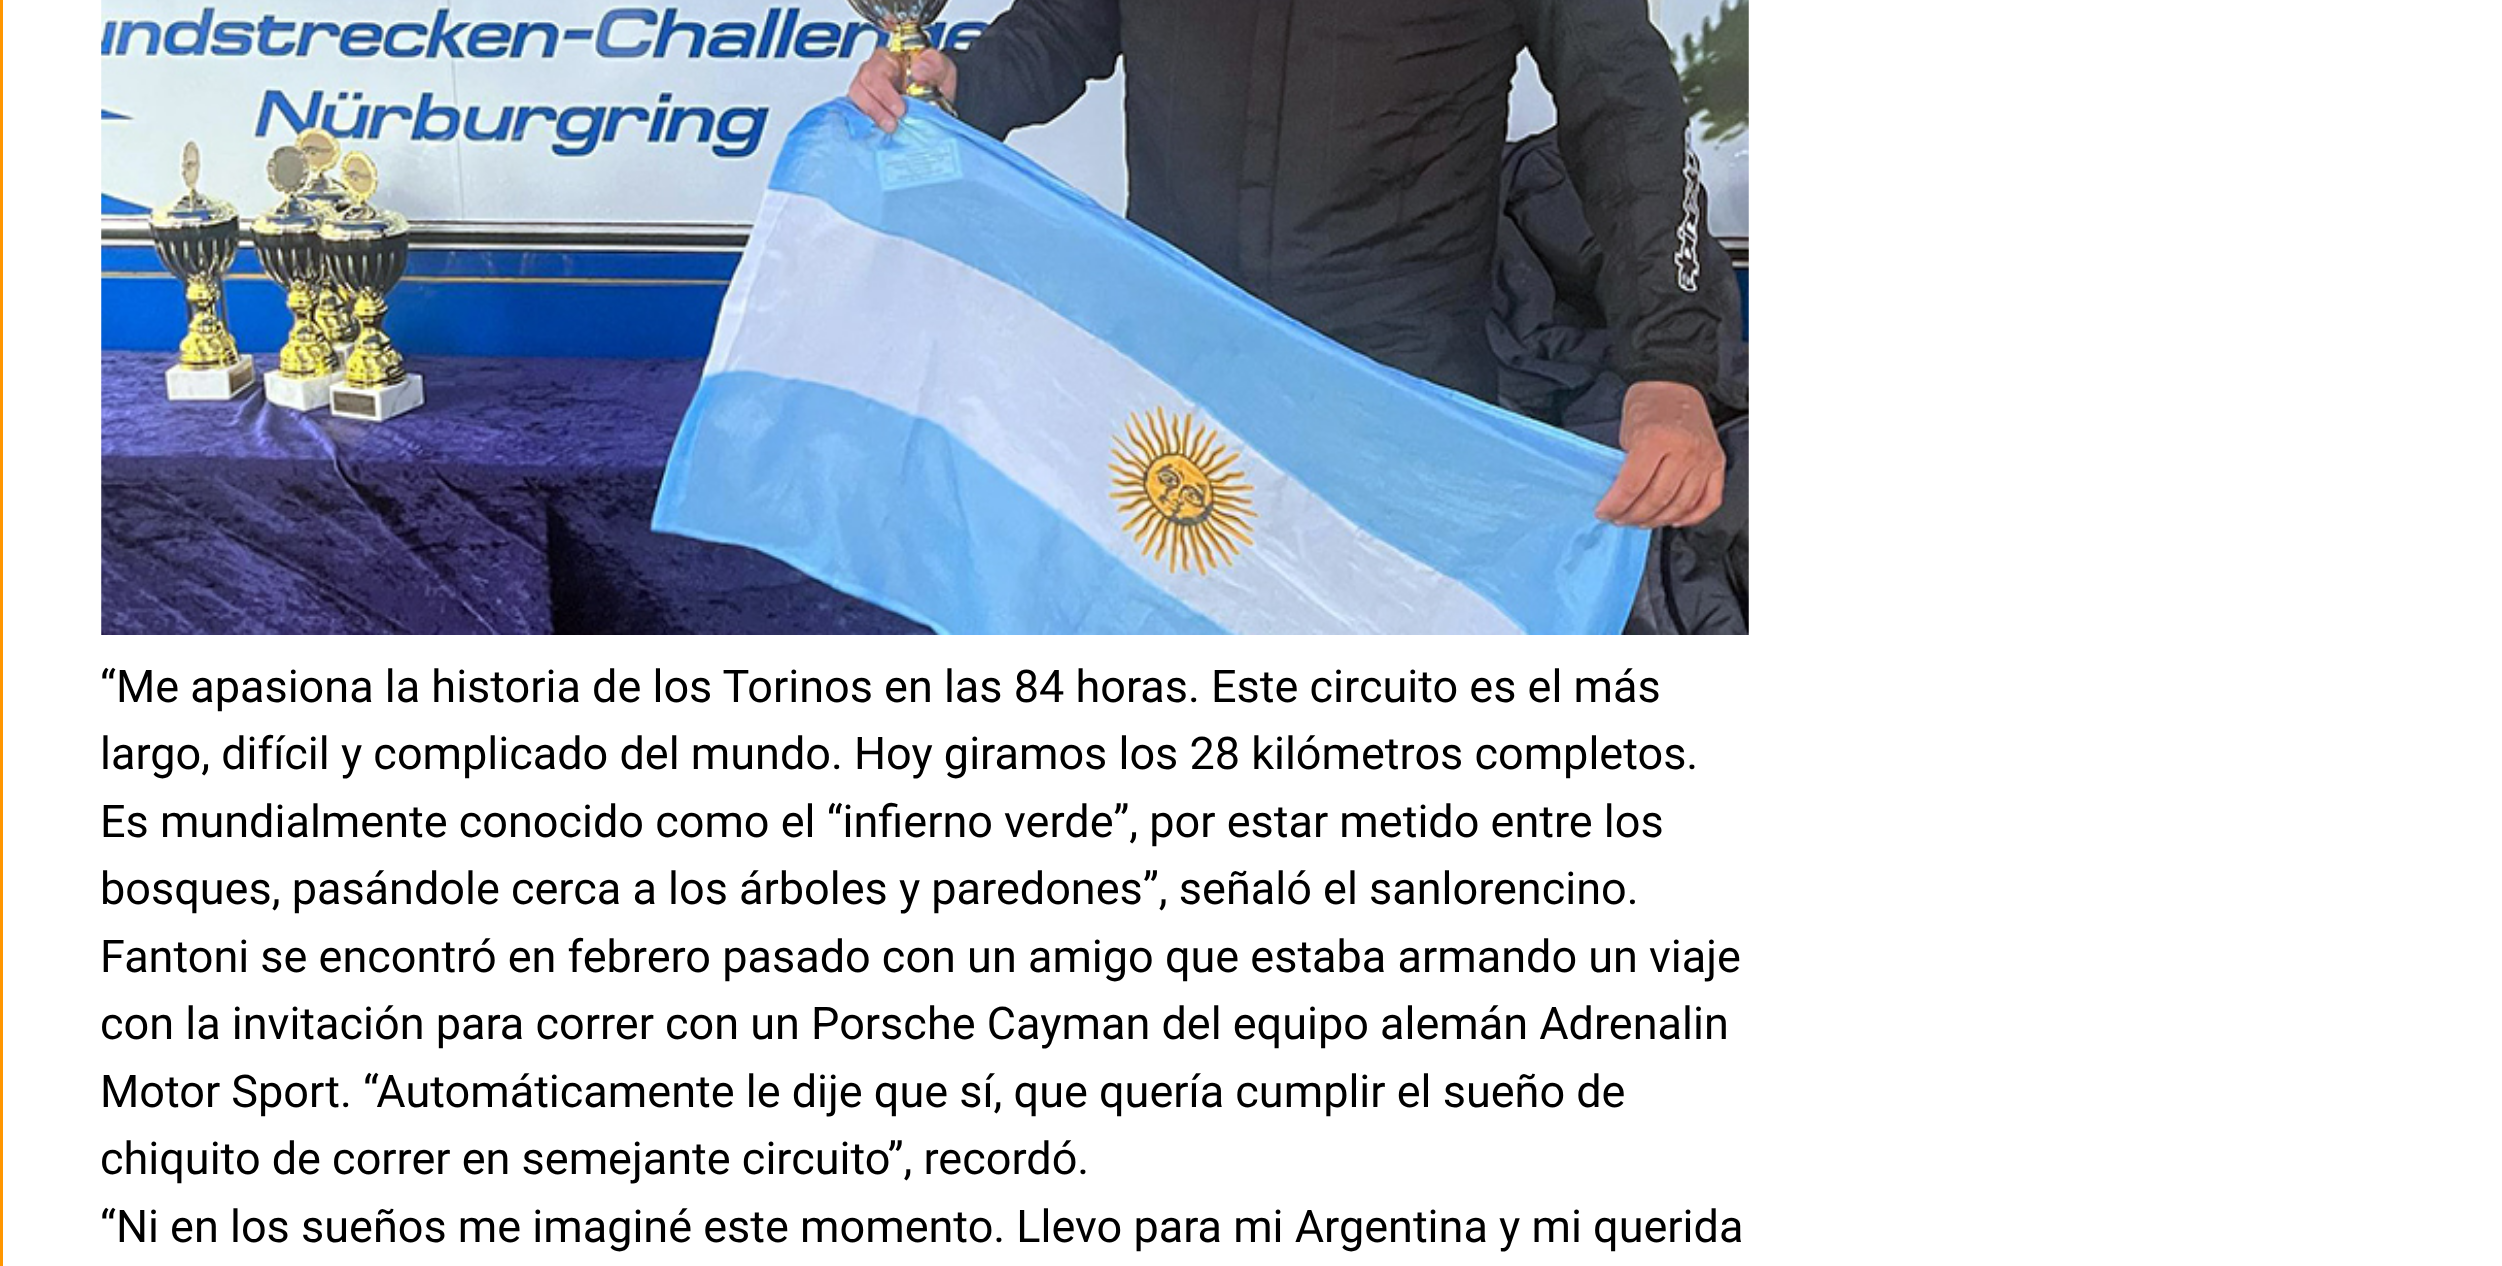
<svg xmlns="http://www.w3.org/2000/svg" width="2502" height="1266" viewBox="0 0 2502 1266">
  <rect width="100%" height="100%" fill="#ff9600"/>
  <rect x="3" y="0" width="2499" height="1266" fill="#ffffff"/>
  <image x="101" y="0" width="1648" height="635" href="img1.png"/>
  <text x="100" y="702" font-family="Roboto" font-size="45" fill="#000000">“Me apasiona la historia de los Torinos en las 84 horas. Este circuito es el más</text>
  <text x="100" y="769" font-family="Roboto" font-size="45" fill="#000000">largo, difícil y complicado del mundo. Hoy giramos los 28 kilómetros completos.</text>
  <text x="100" y="837" font-family="Roboto" font-size="45" fill="#000000">Es mundialmente conocido como el “infierno verde”, por estar metido entre los</text>
  <text x="100" y="904" font-family="Roboto" font-size="45" fill="#000000">bosques, pasándole cerca a los árboles y paredones”, señaló el sanlorencino.</text>
  <text x="100" y="972" font-family="Roboto" font-size="45" fill="#000000">Fantoni se encontró en febrero pasado con un amigo que estaba armando un viaje</text>
  <text x="100" y="1039" font-family="Roboto" font-size="45" fill="#000000">con la invitación para correr con un Porsche Cayman del equipo alemán Adrenalin</text>
  <text x="100" y="1107" font-family="Roboto" font-size="45" fill="#000000">Motor Sport. “Automáticamente le dije que sí, que quería cumplir el sueño de</text>
  <text x="100" y="1174" font-family="Roboto" font-size="45" fill="#000000">chiquito de correr en semejante circuito”, recordó.</text>
  <text x="100" y="1242" font-family="Roboto" font-size="45" fill="#000000">“Ni en los sueños me imaginé este momento. Llevo para mi Argentina y mi querida</text>
</svg>
